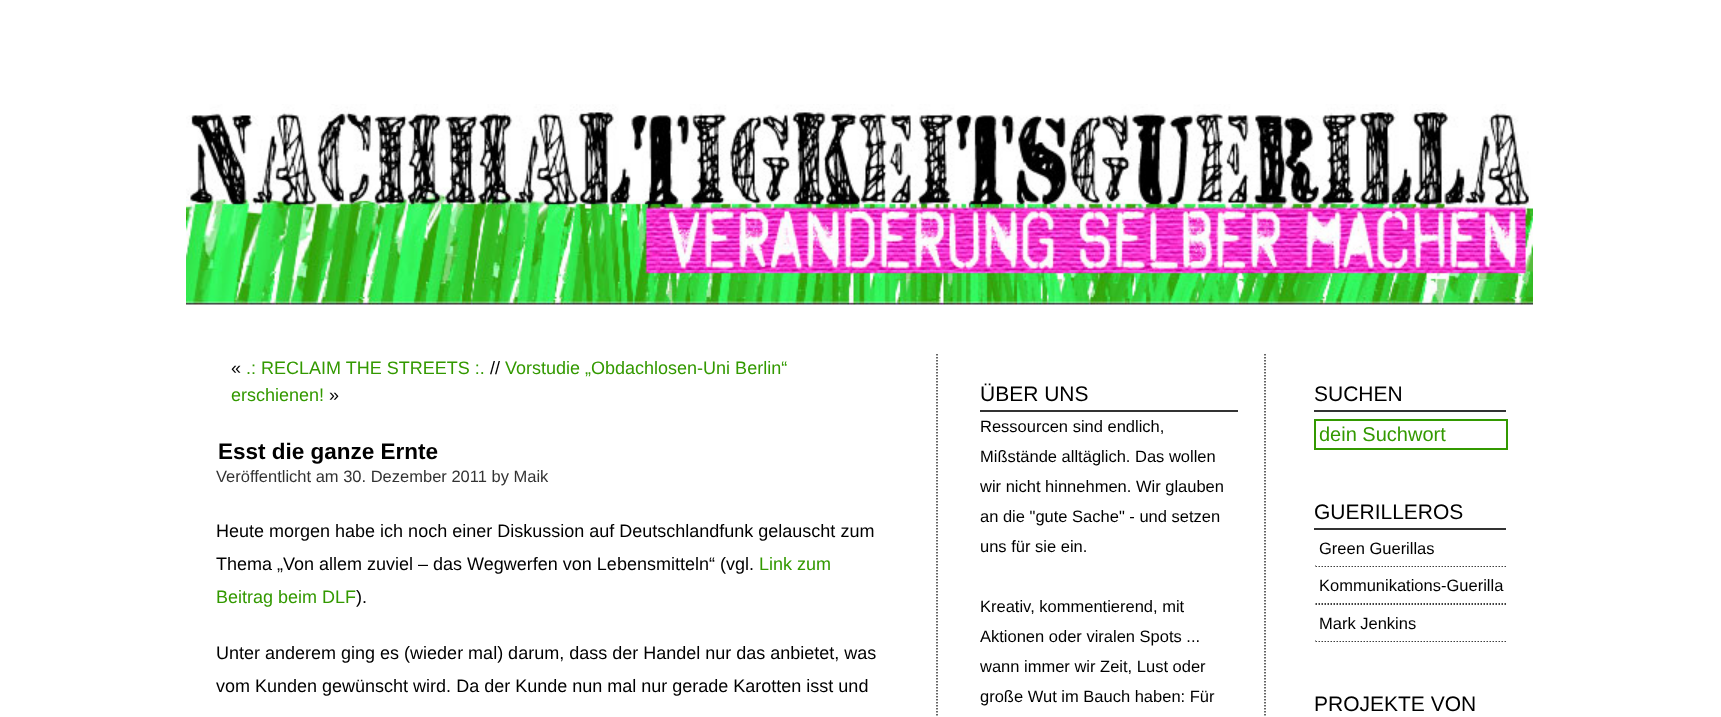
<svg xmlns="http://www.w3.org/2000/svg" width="1721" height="717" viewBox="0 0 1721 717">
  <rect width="100%" height="100%" fill="#ffffff"/>
  <image x="186" y="104" width="1347" height="201" href="img1.png"/>
  <text x="231" y="374" font-family="Liberation Sans" font-size="18" fill="#000000">«</text>
  <text x="246" y="374" font-family="Liberation Sans" font-size="18" fill="#339900">.: RECLAIM THE STREETS :.</text>
  <text x="490" y="374" font-family="Liberation Sans" font-size="18" fill="#000000">//</text>
  <text x="505" y="374" font-family="Liberation Sans" font-size="18" fill="#339900">Vorstudie „Obdachlosen-Uni Berlin“</text>
  <text x="231" y="401" font-family="Liberation Sans" font-size="18" fill="#339900">erschienen!</text>
  <text x="329" y="401" font-family="Liberation Sans" font-size="18" fill="#000000">»</text>
  <text x="218" y="459" font-family="Liberation Sans" font-size="22.5" font-weight="bold" fill="#000000">Esst die ganze Ernte</text>
  <text x="216" y="482" font-family="Liberation Sans" font-size="16.5" fill="#333333">Veröffentlicht am 30. Dezember 2011 by Maik</text>
  <text x="216" y="537" font-family="Liberation Sans" font-size="18" fill="#000000">Heute morgen habe ich noch einer Diskussion auf Deutschlandfunk gelauscht zum</text>
  <text x="216" y="570" font-family="Liberation Sans" font-size="18" fill="#000000">Thema „Von allem zuviel – das Wegwerfen von Lebensmitteln“ (vgl.</text>
  <text x="759" y="570" font-family="Liberation Sans" font-size="18" fill="#339900">Link zum</text>
  <text x="216" y="603" font-family="Liberation Sans" font-size="18" fill="#339900">Beitrag beim DLF</text>
  <text x="356" y="603" font-family="Liberation Sans" font-size="18" fill="#000000">).</text>
  <text x="216" y="659" font-family="Liberation Sans" font-size="18" fill="#000000">Unter anderem ging es (wieder mal) darum, dass der Handel nur das anbietet, was</text>
  <text x="216" y="692" font-family="Liberation Sans" font-size="18" fill="#000000">vom Kunden gewünscht wird. Da der Kunde nun mal nur gerade Karotten isst und</text>
  <path d="M937 354V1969.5" fill="none" stroke="#333333" stroke-width="1.5" stroke-dasharray="1.5 1.5"/>
  <rect x="980" y="410" width="258" height="2" fill="#333333"/>
  <text x="980" y="401" font-family="Liberation Sans" font-size="21" fill="#000000">ÜBER UNS</text>
  <text x="980" y="432" font-family="Liberation Sans" font-size="16.5" fill="#000000">Ressourcen sind endlich,</text>
  <text x="980" y="462" font-family="Liberation Sans" font-size="16.5" fill="#000000">Mißstände alltäglich. Das wollen</text>
  <text x="980" y="492" font-family="Liberation Sans" font-size="16.5" fill="#000000">wir nicht hinnehmen. Wir glauben</text>
  <text x="980" y="522" font-family="Liberation Sans" font-size="16.5" fill="#000000">an die "gute Sache" - und setzen</text>
  <text x="980" y="552" font-family="Liberation Sans" font-size="16.5" fill="#000000">uns für sie ein.</text>
  <text x="980" y="612" font-family="Liberation Sans" font-size="16.5" fill="#000000">Kreativ, kommentierend, mit</text>
  <text x="980" y="642" font-family="Liberation Sans" font-size="16.5" fill="#000000">Aktionen oder viralen Spots ...</text>
  <text x="980" y="672" font-family="Liberation Sans" font-size="16.5" fill="#000000">wann immer wir Zeit, Lust oder</text>
  <text x="980" y="702" font-family="Liberation Sans" font-size="16.5" fill="#000000">große Wut im Bauch haben: Für</text>
  <path d="M1265 354V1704" fill="none" stroke="#333333" stroke-width="1.5" stroke-dasharray="1.5 1.5"/>
  <rect x="1314" y="410" width="192" height="2" fill="#333333"/>
  <text x="1314" y="401" font-family="Liberation Sans" font-size="21" fill="#000000">SUCHEN</text>
  <rect x="1315" y="420" width="192" height="29" fill="none" stroke="#339900" stroke-width="2"/>
  <text x="1319" y="441" font-family="Liberation Sans" font-size="20" fill="#339900">dein Suchwort</text>
  <rect x="1314" y="528" width="192" height="2" fill="#333333"/>
  <text x="1314" y="519" font-family="Liberation Sans" font-size="21" fill="#000000">GUERILLEROS</text>
  <path d="M1315.5 566H1506" fill="none" stroke="#000000" stroke-width="1.5" stroke-dasharray="1.5 1.5"/>
  <rect x="1316" y="565" width="190" height="1" fill="#ffffff"/>
  <text x="1319" y="554" font-family="Liberation Sans" font-size="16.5" fill="#000000">Green Guerillas</text>
  <path d="M1315.5 604H1506" fill="none" stroke="#000000" stroke-width="1.5" stroke-dasharray="1.5 1.5"/>
  <text x="1319" y="591" font-family="Liberation Sans" font-size="16.5" fill="#000000">Kommunikations-Guerilla</text>
  <path d="M1315.5 641H1506" fill="none" stroke="#000000" stroke-width="1.5" stroke-dasharray="1.5 1.5"/>
  <rect x="1316" y="640" width="190" height="1" fill="#ffffff"/>
  <text x="1319" y="629" font-family="Liberation Sans" font-size="16.5" fill="#000000">Mark Jenkins</text>
  <text x="1314" y="711" font-family="Liberation Sans" font-size="21" fill="#000000">PROJEKTE VON</text>
</svg>
